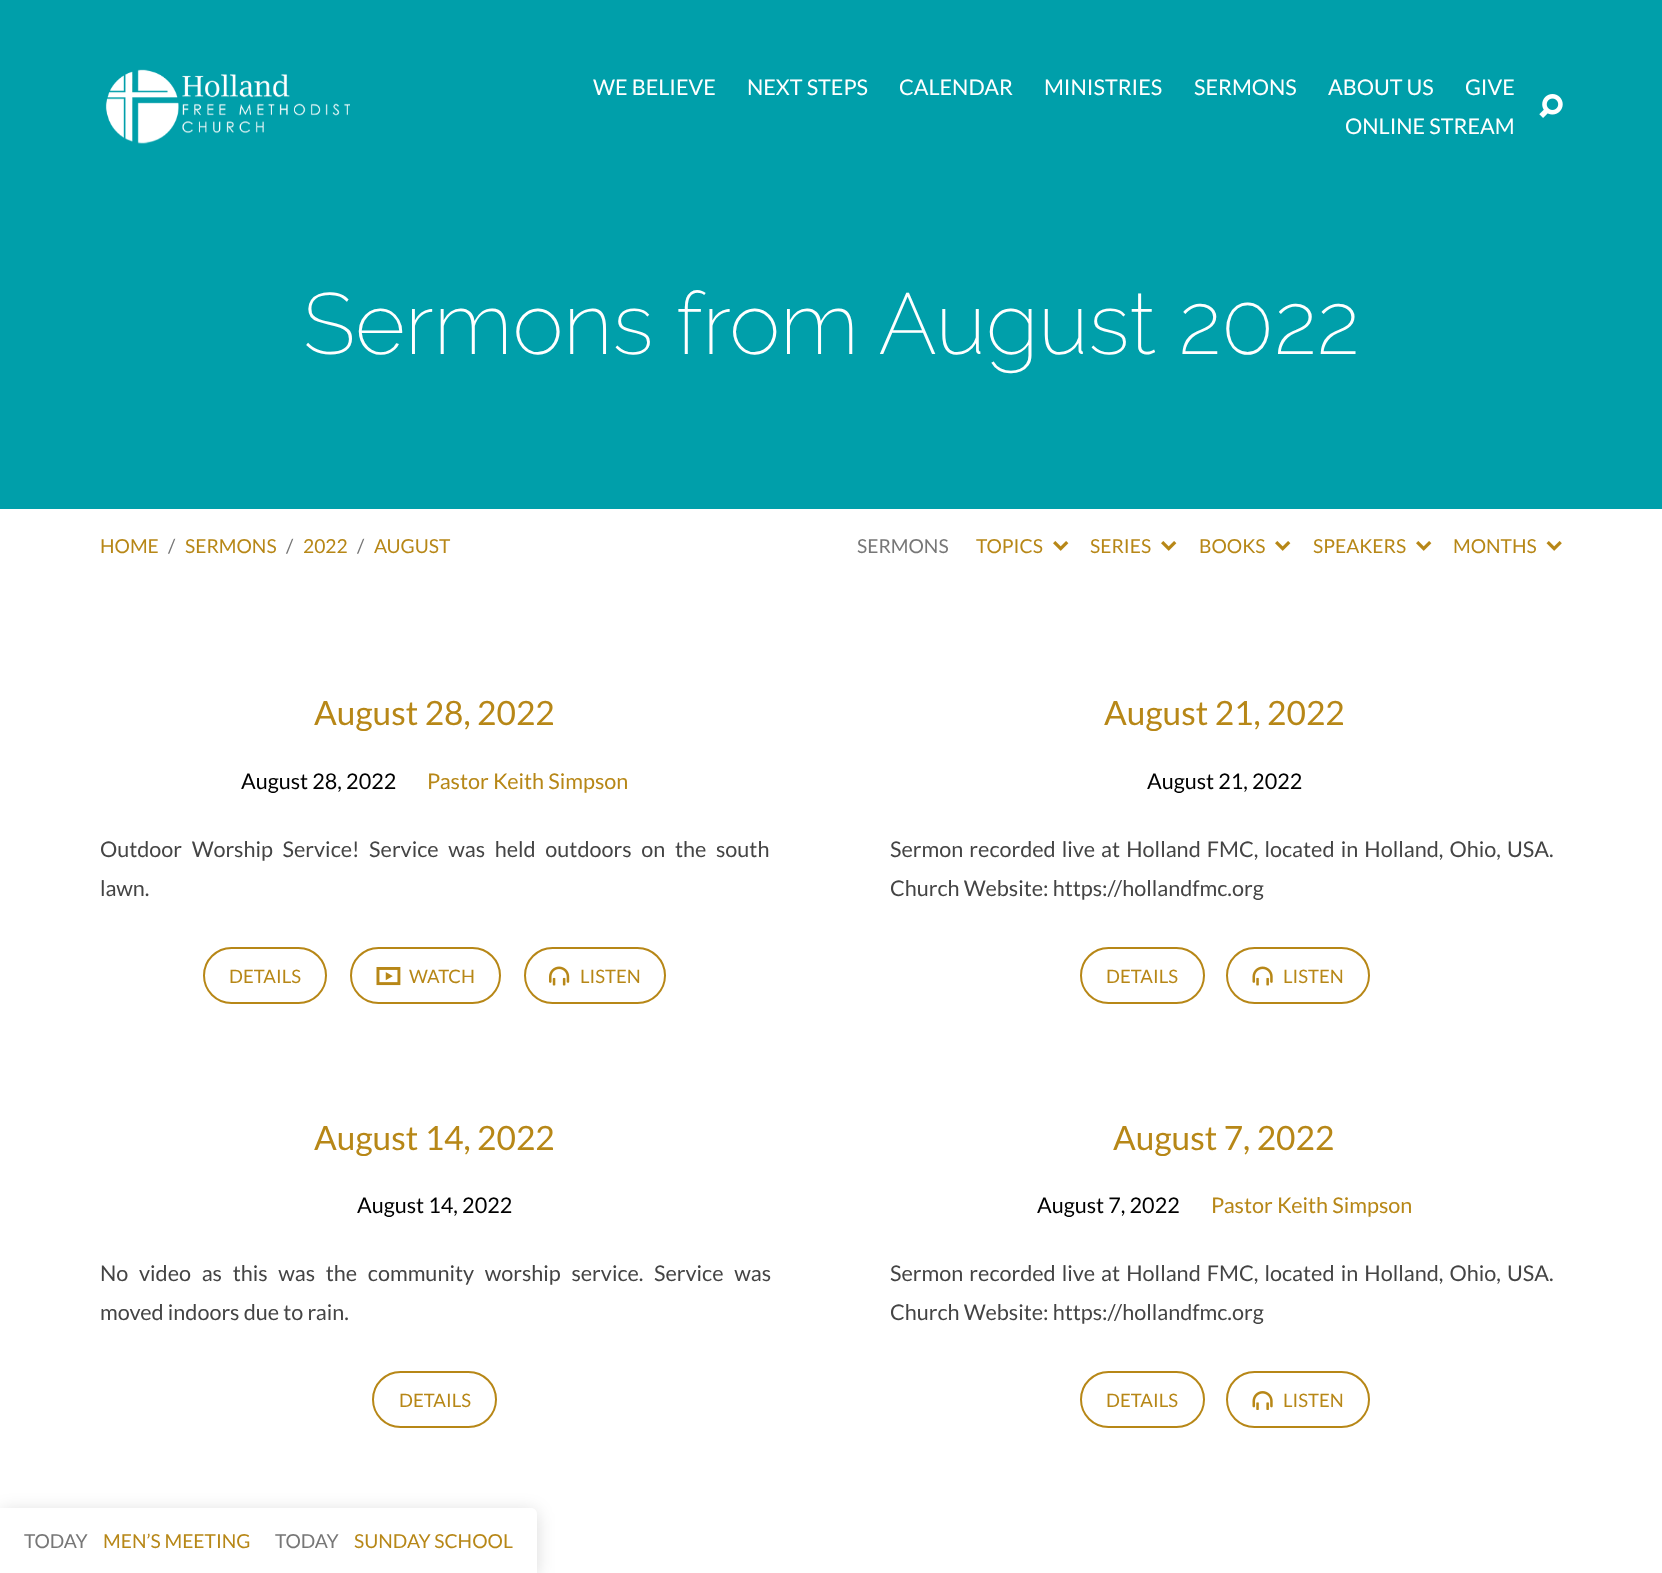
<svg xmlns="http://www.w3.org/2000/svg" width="1662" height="1573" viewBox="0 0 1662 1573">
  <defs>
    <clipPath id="clip1"><path d="M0 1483H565V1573H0ZM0 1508H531C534.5 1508 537 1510.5 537 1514V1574H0Z" clip-rule="evenodd"/></clipPath>
    <filter id="blur1" x="-50%" y="-200%" width="200%" height="500%"><feGaussianBlur stdDeviation="9"/></filter>
  </defs>
  <rect width="100%" height="100%" fill="#ffffff"/>
  <rect x="0" y="0" width="1662" height="509" fill="#009faa"/>
  <image x="105" y="69" width="245" height="75" href="img1.png"/>
  <text x="593" y="95" font-family="Lato" font-size="21.6" fill="#ffffff">WE BELIEVE</text>
  <text x="747" y="95" font-family="Lato" font-size="21.6" fill="#ffffff">NEXT STEPS</text>
  <text x="899" y="95" font-family="Lato" font-size="21.6" fill="#ffffff">CALENDAR</text>
  <text x="1044" y="95" font-family="Lato" font-size="21.6" fill="#ffffff">MINISTRIES</text>
  <text x="1194" y="95" font-family="Lato" font-size="21.6" fill="#ffffff">SERMONS</text>
  <text x="1328" y="95" font-family="Lato" font-size="21.6" fill="#ffffff">ABOUT US</text>
  <text x="1465" y="95" font-family="Lato" font-size="21.6" fill="#ffffff">GIVE</text>
  <text x="1345" y="134" font-family="Lato" font-size="21.6" fill="#ffffff">ONLINE STREAM</text>
  <image x="1539" y="94" width="24" height="24" href="img2.png"/>
  <text x="303" y="354" font-family="Raleway" font-size="86.4" font-weight="200" fill="#ffffff">Sermons from August 2022</text>
  <text x="100" y="553" font-family="Lato" font-size="19.25" fill="#b78717">HOME</text>
  <text x="168" y="553" font-family="Lato" font-size="19.25" fill="#777777">/</text>
  <text x="185" y="553" font-family="Lato" font-size="19.25" fill="#b78717">SERMONS</text>
  <text x="286" y="553" font-family="Lato" font-size="19.25" fill="#777777">/</text>
  <text x="303" y="553" font-family="Lato" font-size="19.25" fill="#b78717">2022</text>
  <text x="357" y="553" font-family="Lato" font-size="19.25" fill="#777777">/</text>
  <text x="374" y="553" font-family="Lato" font-size="19.25" fill="#b78717">AUGUST</text>
  <text x="857" y="553" font-family="Lato" font-size="19.25" fill="#777777">SERMONS</text>
  <text x="976" y="553" font-family="Lato" font-size="19.25" fill="#b78717">TOPICS</text>
  <image x="1053" y="541" width="16" height="10" href="img3.png"/>
  <text x="1090" y="553" font-family="Lato" font-size="19.25" fill="#b78717">SERIES</text>
  <image x="1161" y="541" width="16" height="10" href="img3.png"/>
  <text x="1199" y="553" font-family="Lato" font-size="19.25" fill="#b78717">BOOKS</text>
  <image x="1275" y="541" width="16" height="10" href="img3.png"/>
  <text x="1313" y="553" font-family="Lato" font-size="19.25" fill="#b78717">SPEAKERS</text>
  <image x="1416" y="541" width="16" height="10" href="img3.png"/>
  <text x="1453" y="553" font-family="Lato" font-size="19.25" fill="#b78717">MONTHS</text>
  <image x="1546" y="541" width="16" height="10" href="img4.png"/>
  <text x="314" y="725" font-family="Lato" font-size="33.5" fill="#b78717">August 28, 2022</text>
  <text x="241" y="789" font-family="Lato" font-size="21.6" fill="#000000">August 28, 2022</text>
  <text x="427" y="789" font-family="Lato" font-size="21.6" fill="#b78717">Pastor Keith Simpson</text>
  <text x="100" y="857" word-spacing="5.5" font-family="Lato" font-size="21.6" fill="#444444">Outdoor Worship Service! Service was held outdoors on the south</text>
  <text x="100" y="896" font-family="Lato" font-size="21.6" fill="#444444">lawn.</text>
  <rect x="204" y="948" width="122" height="55" rx="27.5" fill="none" stroke="#b78717" stroke-width="2"/>
  <text x="229" y="983" font-family="Lato" font-size="18.5" fill="#b78717">DETAILS</text>
  <rect x="351" y="948" width="149" height="55" rx="27.5" fill="none" stroke="#b78717" stroke-width="2"/>
  <image x="376" y="967" width="25" height="19" href="img5.png"/>
  <text x="409" y="983" font-family="Lato" font-size="18.5" fill="#b78717">WATCH</text>
  <rect x="525" y="948" width="140" height="55" rx="27.5" fill="none" stroke="#b78717" stroke-width="2"/>
  <image x="549" y="966" width="21" height="20" href="img6.png"/>
  <text x="580" y="983" font-family="Lato" font-size="18.5" fill="#b78717">LISTEN</text>
  <text x="1104" y="725" font-family="Lato" font-size="33.5" fill="#b78717">August 21, 2022</text>
  <text x="1147" y="789" font-family="Lato" font-size="21.6" fill="#000000">August 21, 2022</text>
  <text x="890" y="857" word-spacing="2" font-family="Lato" font-size="21.6" fill="#444444">Sermon recorded live at Holland FMC, located in Holland, Ohio, USA.</text>
  <text x="890" y="896" font-family="Lato" font-size="21.6" fill="#444444">Church Website: https://hollandfmc.org</text>
  <rect x="1081" y="948" width="123" height="55" rx="27.5" fill="none" stroke="#b78717" stroke-width="2"/>
  <text x="1106" y="983" font-family="Lato" font-size="18.5" fill="#b78717">DETAILS</text>
  <rect x="1227" y="948" width="142" height="55" rx="27.5" fill="none" stroke="#b78717" stroke-width="2"/>
  <image x="1252" y="966" width="21" height="20" href="img7.png"/>
  <text x="1283" y="983" font-family="Lato" font-size="18.5" fill="#b78717">LISTEN</text>
  <text x="314" y="1150" font-family="Lato" font-size="33.5" fill="#b78717">August 14, 2022</text>
  <text x="357" y="1213" font-family="Lato" font-size="21.6" fill="#000000">August 14, 2022</text>
  <text x="100" y="1281" word-spacing="6.5" font-family="Lato" font-size="21.6" fill="#444444">No video as this was the community worship service. Service was</text>
  <text x="100" y="1320" font-family="Lato" font-size="21.6" fill="#444444">moved indoors due to rain.</text>
  <rect x="373" y="1372" width="123" height="55" rx="27.5" fill="none" stroke="#b78717" stroke-width="2"/>
  <text x="399" y="1407" font-family="Lato" font-size="18.5" fill="#b78717">DETAILS</text>
  <text x="1113" y="1150" font-family="Lato" font-size="33.5" fill="#b78717">August 7, 2022</text>
  <text x="1037" y="1213" font-family="Lato" font-size="21.6" fill="#000000">August 7, 2022</text>
  <text x="1211" y="1213" font-family="Lato" font-size="21.6" fill="#b78717">Pastor Keith Simpson</text>
  <text x="890" y="1281" word-spacing="2" font-family="Lato" font-size="21.6" fill="#444444">Sermon recorded live at Holland FMC, located in Holland, Ohio, USA.</text>
  <text x="890" y="1320" font-family="Lato" font-size="21.6" fill="#444444">Church Website: https://hollandfmc.org</text>
  <rect x="1081" y="1372" width="123" height="55" rx="27.5" fill="none" stroke="#b78717" stroke-width="2"/>
  <text x="1106" y="1407" font-family="Lato" font-size="18.5" fill="#b78717">DETAILS</text>
  <rect x="1227" y="1372" width="142" height="55" rx="27.5" fill="none" stroke="#b78717" stroke-width="2"/>
  <image x="1252" y="1391" width="21" height="19" href="img8.png"/>
  <text x="1283" y="1407" font-family="Lato" font-size="18.5" fill="#b78717">LISTEN</text>
  <g clip-path="url(#clip1)">
    <rect x="0" y="1511" width="537" height="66" rx="6" fill="#000000" fill-opacity="0.15" filter="url(#blur1)"/>
  </g>
  <text x="24" y="1548" font-family="Lato" font-size="19.25" fill="#777777">TODAY</text>
  <text x="103" y="1548" font-family="Lato" font-size="19.25" fill="#b78717">MEN’S MEETING</text>
  <text x="275" y="1548" font-family="Lato" font-size="19.25" fill="#777777">TODAY</text>
  <text x="354" y="1548" font-family="Lato" font-size="19.25" fill="#b78717">SUNDAY SCHOOL</text>
</svg>
